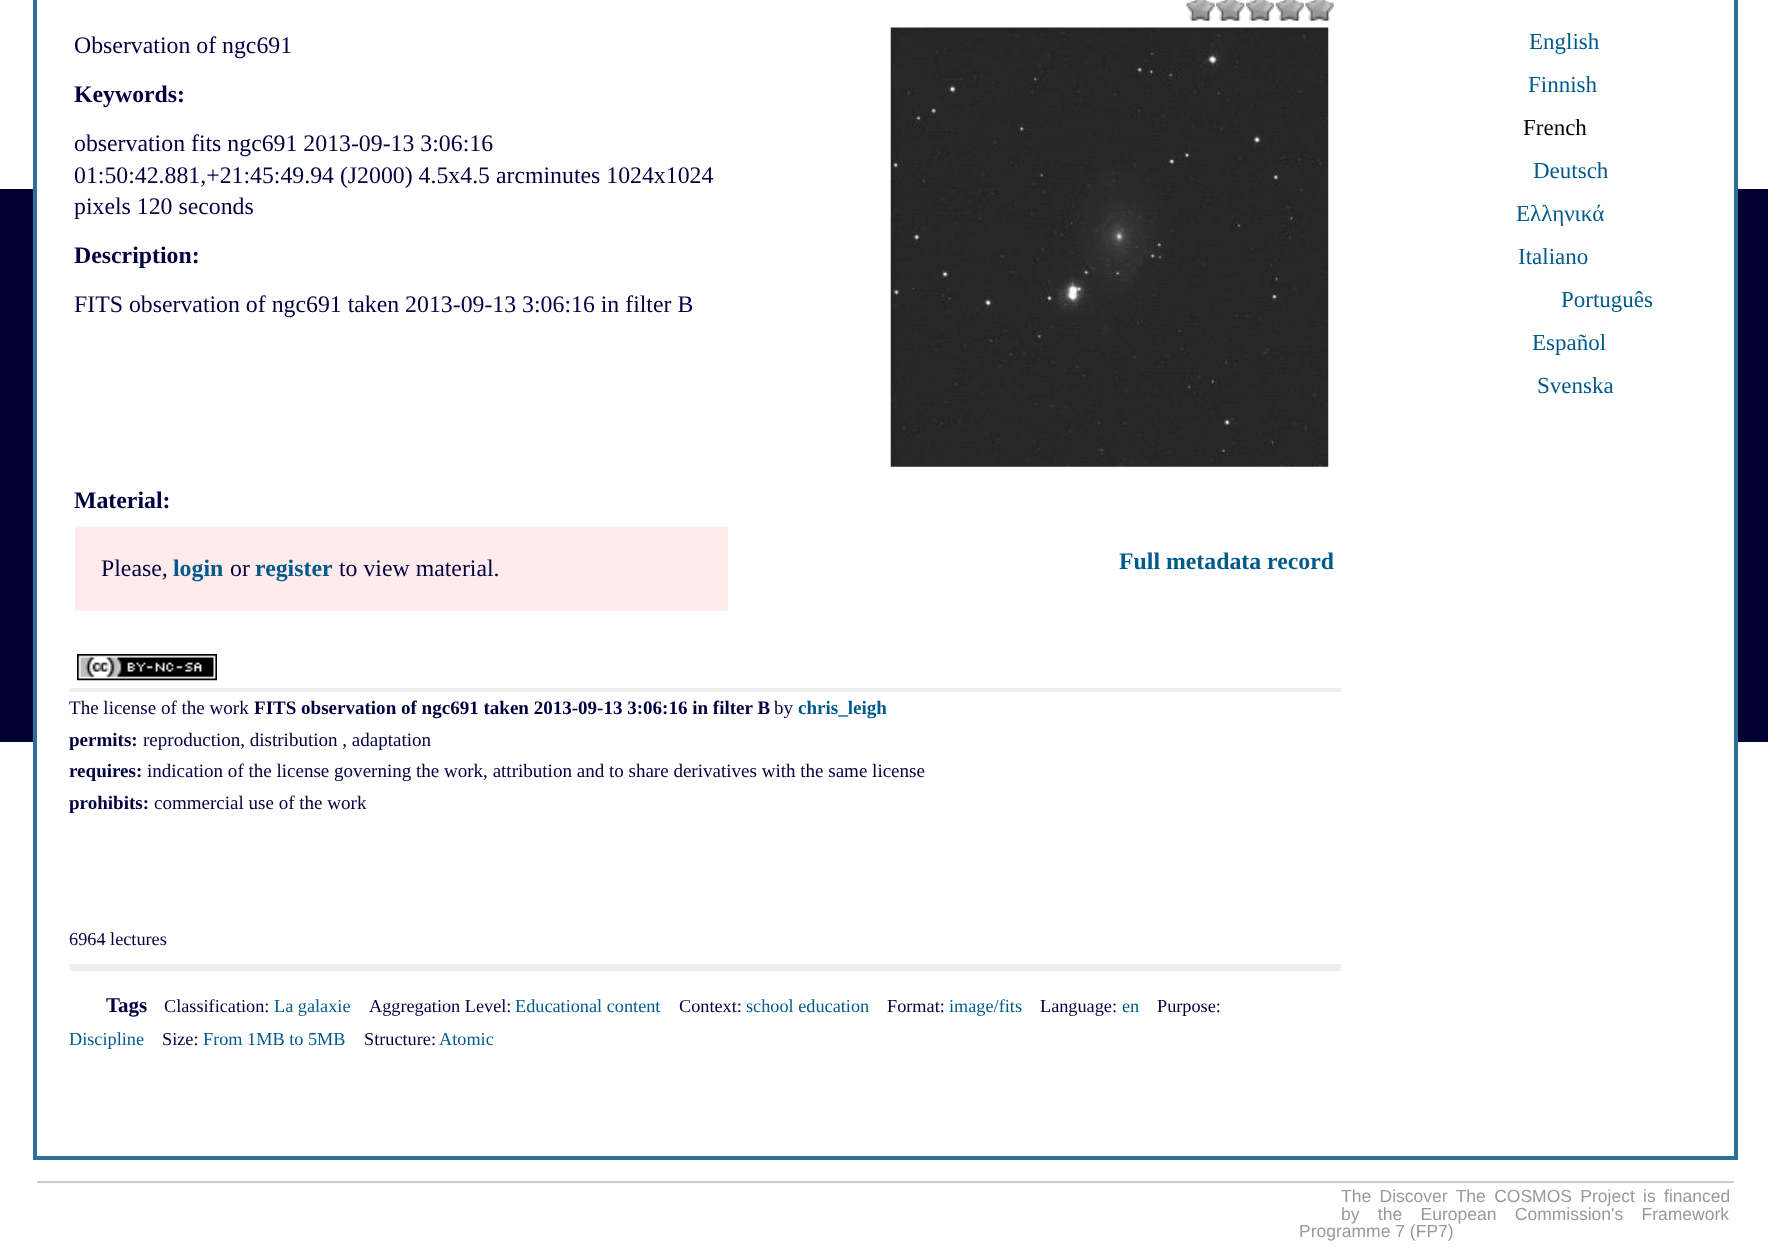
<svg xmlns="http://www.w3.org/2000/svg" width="1768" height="1258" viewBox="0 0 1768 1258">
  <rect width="100%" height="100%" fill="#ffffff"/>
  <rect x="0" y="189" width="1768" height="553" fill="#000033"/>
  <rect x="37" y="189" width="1697" height="553" fill="#ffffff"/>
  <rect x="35" y="-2" width="1701" height="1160" fill="none" stroke="#2f709b" stroke-width="4"/>
  <text x="74" y="53" font-family="Liberation Serif" font-size="23.8" fill="#000040">Observation of ngc691</text>
  <text x="74" y="102" font-family="Liberation Serif" font-size="23.8" font-weight="bold" fill="#000040">Keywords:</text>
  <text x="74" y="151" font-family="Liberation Serif" font-size="23.8" fill="#000040">observation fits ngc691 2013-09-13 3:06:16</text>
  <text x="74" y="183" font-family="Liberation Serif" font-size="23.8" fill="#000040">01:50:42.881,+21:45:49.94 (J2000) 4.5x4.5 arcminutes 1024x1024</text>
  <text x="74" y="214" font-family="Liberation Serif" font-size="23.8" fill="#000040">pixels 120 seconds</text>
  <text x="74" y="263" font-family="Liberation Serif" font-size="23.8" font-weight="bold" fill="#000040">Description:</text>
  <text x="74" y="312" font-family="Liberation Serif" font-size="23.8" fill="#000040">FITS observation of ngc691 taken 2013-09-13 3:06:16 in filter B</text>
  <image x="1186" y="0" width="29" height="21" href="img1.png"/>
  <image x="1186" y="0" width="29" height="21" href="img2.png"/>
  <image x="1216" y="0" width="29" height="21" href="img3.png"/>
  <image x="1216" y="0" width="29" height="21" href="img4.png"/>
  <image x="1246" y="0" width="28" height="21" href="img5.png"/>
  <image x="1246" y="0" width="28" height="21" href="img6.png"/>
  <image x="1275" y="0" width="29" height="21" href="img7.png"/>
  <image x="1275" y="0" width="29" height="21" href="img8.png"/>
  <image x="1305" y="0" width="29" height="21" href="img9.png"/>
  <image x="1305" y="0" width="29" height="21" href="img10.png"/>
  <image x="890" y="27" width="439" height="440" href="img11.png"/>
  <text x="74" y="508" font-family="Liberation Serif" font-size="23.8" font-weight="bold" fill="#000040">Material:</text>
  <rect x="75" y="527" width="653" height="84" fill="#ffebeb"/>
  <text x="101" y="576" font-family="Liberation Serif" font-size="23.8" fill="#000040">Please,</text>
  <text x="173" y="576" font-family="Liberation Serif" font-size="23.8" font-weight="bold" fill="#005a8c">login</text>
  <text x="230" y="576" font-family="Liberation Serif" font-size="23.8" fill="#000040">or</text>
  <text x="255" y="576" font-family="Liberation Serif" font-size="23.8" font-weight="bold" fill="#005a8c">register</text>
  <text x="339" y="576" font-family="Liberation Serif" font-size="23.8" fill="#000040">to view material.</text>
  <text x="1119" y="569" font-family="Liberation Serif" font-size="23.8" font-weight="bold" fill="#005a8c">Full metadata record</text>
  <image x="77" y="654" width="140" height="27" href="img12.png"/>
  <rect x="70" y="688" width="1271" height="4" fill="#eeeeee"/>
  <text x="69" y="714" font-family="Liberation Serif" font-size="19.05" fill="#000040">The license of the work</text>
  <text x="254" y="714" font-family="Liberation Serif" font-size="19.05" font-weight="bold" fill="#000040">FITS observation of ngc691 taken 2013-09-13 3:06:16 in filter B</text>
  <text x="774" y="714" font-family="Liberation Serif" font-size="19.05" fill="#000040">by</text>
  <text x="798" y="714" font-family="Liberation Serif" font-size="19.05" font-weight="bold" fill="#005a8c">chris_leigh</text>
  <text x="69" y="746" font-family="Liberation Serif" font-size="19.05" font-weight="bold" fill="#000040">permits:</text>
  <text x="143" y="746" font-family="Liberation Serif" font-size="19.05" fill="#000040">reproduction, distribution , adaptation</text>
  <text x="69" y="777" font-family="Liberation Serif" font-size="19.05" font-weight="bold" fill="#000040">requires:</text>
  <text x="147" y="777" font-family="Liberation Serif" font-size="19.05" fill="#000040">indication of the license governing the work, attribution and to share derivatives with the same license</text>
  <text x="69" y="809" font-family="Liberation Serif" font-size="19.05" font-weight="bold" fill="#000040">prohibits:</text>
  <text x="154" y="809" font-family="Liberation Serif" font-size="19.05" fill="#000040">commercial use of the work</text>
  <text x="69" y="945" font-family="Liberation Serif" font-size="18.25" fill="#000040">6964 lectures</text>
  <rect x="70" y="964" width="1271" height="7" fill="#eeeeee"/>
  <text x="106" y="1012" font-family="Liberation Serif" font-size="21" font-weight="bold" fill="#000040">Tags</text>
  <text x="164" y="1012" font-family="Liberation Serif" font-size="18.25" fill="#000040">Classification:</text>
  <text x="274" y="1012" font-family="Liberation Serif" font-size="18.25" fill="#005a8c">La galaxie</text>
  <text x="369" y="1012" font-family="Liberation Serif" font-size="18.25" fill="#000040">Aggregation Level:</text>
  <text x="515" y="1012" font-family="Liberation Serif" font-size="18.25" fill="#005a8c">Educational content</text>
  <text x="679" y="1012" font-family="Liberation Serif" font-size="18.25" fill="#000040">Context:</text>
  <text x="746" y="1012" font-family="Liberation Serif" font-size="18.25" fill="#005a8c">school education</text>
  <text x="887" y="1012" font-family="Liberation Serif" font-size="18.25" fill="#000040">Format:</text>
  <text x="949" y="1012" font-family="Liberation Serif" font-size="18.25" fill="#005a8c">image/fits</text>
  <text x="1040" y="1012" font-family="Liberation Serif" font-size="18.25" fill="#000040">Language:</text>
  <text x="1122" y="1012" font-family="Liberation Serif" font-size="18.25" fill="#005a8c">en</text>
  <text x="1157" y="1012" font-family="Liberation Serif" font-size="18.25" fill="#000040">Purpose:</text>
  <text x="69" y="1045" font-family="Liberation Serif" font-size="18.25" fill="#005a8c">Discipline</text>
  <text x="162" y="1045" font-family="Liberation Serif" font-size="18.25" fill="#000040">Size:</text>
  <text x="203" y="1045" font-family="Liberation Serif" font-size="18.25" fill="#005a8c">From 1MB to 5MB</text>
  <text x="364" y="1045" font-family="Liberation Serif" font-size="18.25" fill="#000040">Structure:</text>
  <text x="439" y="1045" font-family="Liberation Serif" font-size="18.25" fill="#005a8c">Atomic</text>
  <text x="1529" y="49" font-family="Liberation Serif" font-size="23" fill="#005a8c">English</text>
  <text x="1528" y="92" font-family="Liberation Serif" font-size="23" fill="#005a8c">Finnish</text>
  <text x="1523" y="135" font-family="Liberation Serif" font-size="23" fill="#000000">French</text>
  <text x="1533" y="178" font-family="Liberation Serif" font-size="23" fill="#005a8c">Deutsch</text>
  <text x="1516" y="221" font-family="Liberation Serif" font-size="23" fill="#005a8c">Ελληνικά</text>
  <text x="1518" y="264" font-family="Liberation Serif" font-size="23" fill="#005a8c">Italiano</text>
  <text x="1561" y="307" font-family="Liberation Serif" font-size="23" fill="#005a8c">Português</text>
  <text x="1532" y="350" font-family="Liberation Serif" font-size="23" fill="#005a8c">Español</text>
  <text x="1537" y="393" font-family="Liberation Serif" font-size="23" fill="#005a8c">Svenska</text>
  <rect x="37" y="1181" width="1697" height="2" fill="#cccccc"/>
  <text x="1341" y="1202" word-spacing="3.5" font-family="Liberation Sans" font-size="17.5" fill="#999999">The Discover The COSMOS Project is financed</text>
  <text x="1341" y="1220" word-spacing="13.5" font-family="Liberation Sans" font-size="17.5" fill="#999999">by the European Commission's Framework</text>
  <text x="1299" y="1237" font-family="Liberation Sans" font-size="17.5" fill="#999999">Programme 7 (FP7)</text>
</svg>
